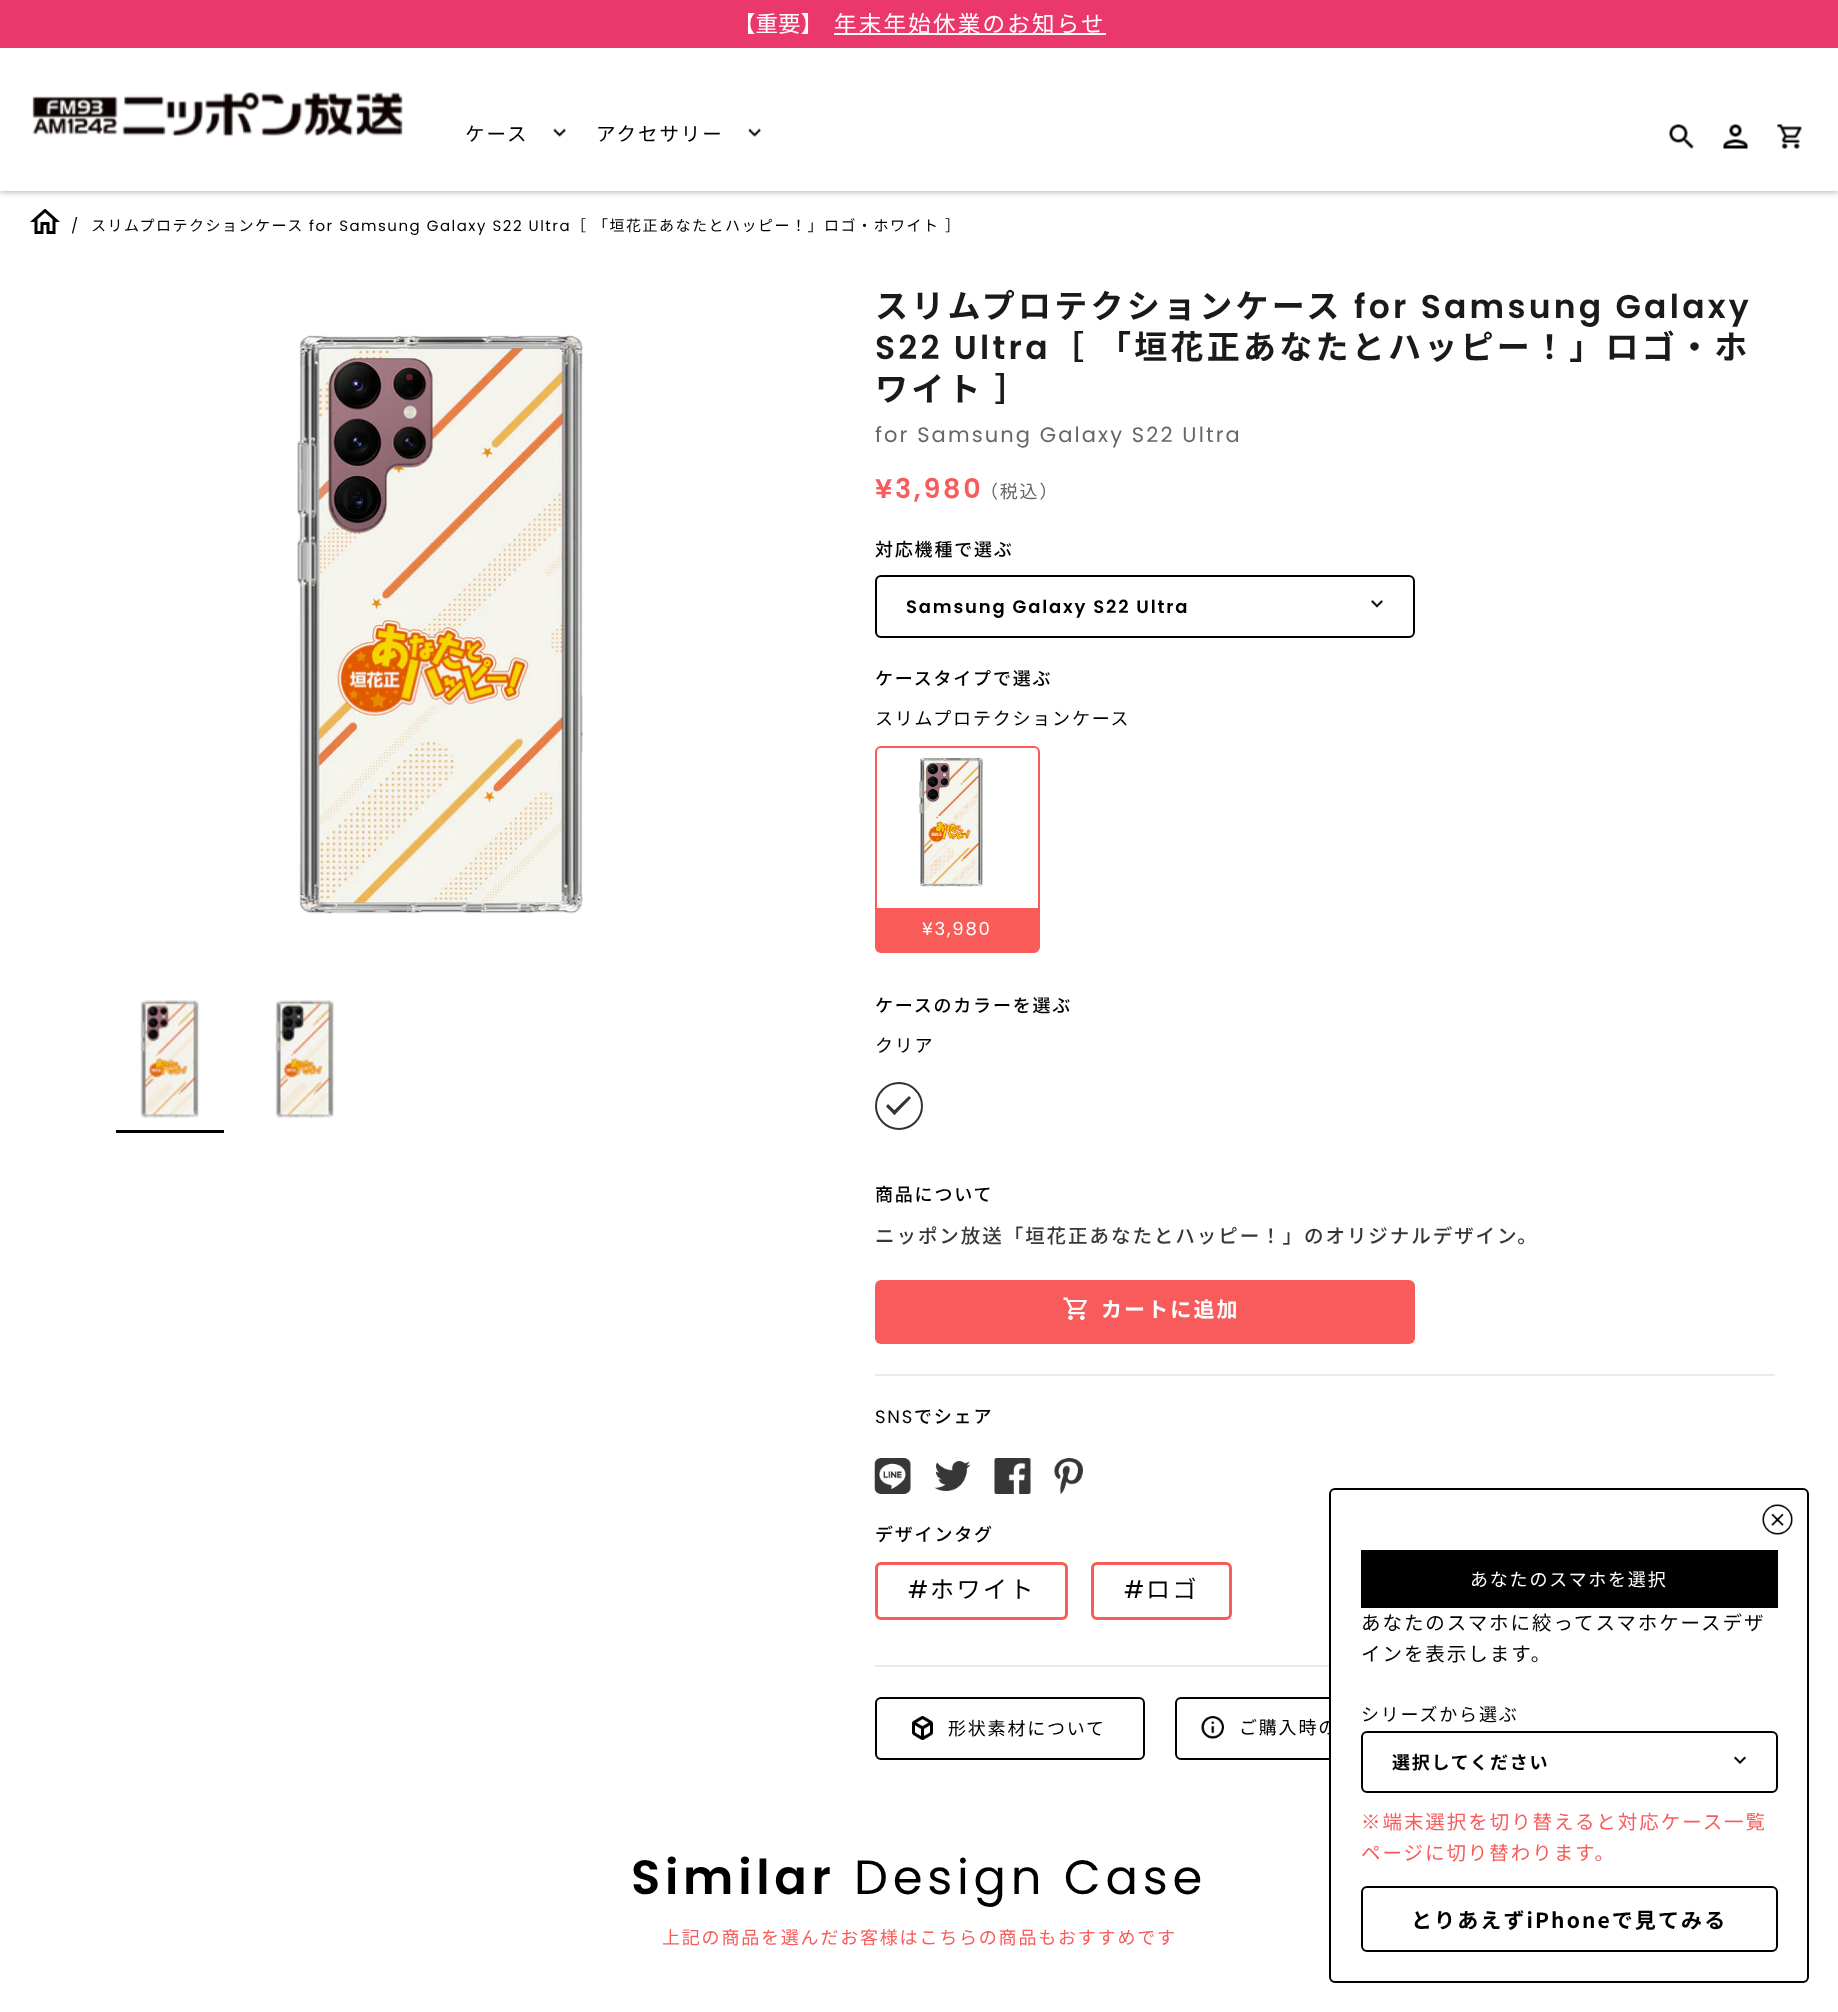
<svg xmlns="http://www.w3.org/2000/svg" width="1838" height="2012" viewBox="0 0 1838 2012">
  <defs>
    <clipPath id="clip1"><path d="M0 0H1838V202H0ZM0 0H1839V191H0Z" clip-rule="evenodd"/></clipPath>
    <filter id="blur1" x="-50%" y="-200%" width="200%" height="500%"><feGaussianBlur stdDeviation="3"/></filter>
  </defs>
  <rect width="100%" height="100%" fill="#ffffff"/>
  <g clip-path="url(#clip1)">
    <rect x="0" y="2" width="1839" height="190" fill="#000000" fill-opacity="0.3" filter="url(#blur1)"/>
  </g>
  <rect x="0" y="190" width="1838" height="1" fill="#ffffff" fill-opacity="0.9"/>
  <rect x="0" y="0" width="1838" height="48" fill="#ea386d"/>
  <text x="733" y="32" font-family="Noto Sans JP" font-size="22.5" fill="#ffffff">【重要】</text>
  <rect x="834" y="33" width="272" height="2" fill="#fafafa"/>
  <text x="834" y="32" font-family="Noto Sans JP" font-size="22.5" letter-spacing="2.25" fill="#ffffff">年末年始休業のお知らせ</text>
  <image x="32" y="91" width="371" height="46" href="img1.png"/>
  <text x="465" y="141" font-family="Noto Sans JP" font-size="19.5" letter-spacing="1.95" fill="#000000">ケース</text>
  <image x="553" y="128" width="13" height="9" href="img2.png"/>
  <text x="596" y="141" font-family="Noto Sans JP" font-size="19.5" letter-spacing="1.95" fill="#000000">アクセサリー</text>
  <image x="748" y="128" width="13" height="9" href="img2.png"/>
  <image x="1669" y="124" width="25" height="25" href="img3.png"/>
  <image x="1723" y="124" width="25" height="25" href="img4.png"/>
  <image x="1777" y="124" width="25" height="25" href="img5.png"/>
  <image x="30" y="209" width="30" height="25" href="img6.png"/>
  <text x="71" y="231" font-family="Poppins" font-size="15" letter-spacing="1.5" fill="#000000">/</text>
  <text x="91" y="231" font-family="Noto Sans JP" font-size="15" letter-spacing="1.5" fill="#000000">スリムプロテクションケース</text>
  <text x="309" y="231" font-family="Poppins" font-size="15" letter-spacing="1.5" fill="#000000">for Samsung Galaxy S22 Ultra</text>
  <text x="571" y="231" font-family="Noto Sans JP" font-size="15" letter-spacing="1.5" fill="#000000">［</text>
  <text x="593" y="231" font-family="Noto Sans JP" font-size="15" letter-spacing="1.5" fill="#000000">「垣花正あなたとハッピー！」ロゴ・ホワイト</text>
  <text x="945" y="231" font-family="Noto Sans JP" font-size="15" letter-spacing="1.5" fill="#000000">］</text>
  <image x="297" y="335" width="286" height="579" href="img7.png"/>
  <image x="140" y="1000" width="60" height="118" href="img8.png"/>
  <rect x="116" y="1130" width="108" height="3" fill="#000000"/>
  <image x="275" y="1000" width="60" height="118" href="img9.png"/>
  <text x="875" y="318" font-family="Noto Sans JP" font-size="33" font-weight="bold" letter-spacing="3.25" fill="#1a1a1a">スリムプロテクションケース</text>
  <text x="1354" y="318" font-family="Poppins" font-size="33" font-weight="600" letter-spacing="3.25" fill="#1a1a1a">for Samsung Galaxy</text>
  <text x="875" y="359" font-family="Poppins" font-size="33" font-weight="600" letter-spacing="3.25" fill="#1a1a1a">S22 Ultra</text>
  <text x="1051" y="359" font-family="Noto Sans JP" font-size="33" font-weight="bold" letter-spacing="3.25" fill="#1a1a1a">［ 「垣花正あなたとハッピー！」ロゴ・ホ</text>
  <text x="875" y="401" font-family="Noto Sans JP" font-size="33" font-weight="bold" letter-spacing="3.25" fill="#1a1a1a">ワイト ］</text>
  <text x="875" y="442" font-family="Poppins" font-size="21" letter-spacing="2.1" fill="#666666">for Samsung Galaxy S22 Ultra</text>
  <text x="875" y="498" font-family="Poppins" font-size="27" font-weight="600" letter-spacing="2.75" fill="#f85b5b">¥3,980</text>
  <text x="980" y="498" font-family="Noto Sans JP" font-size="18" letter-spacing="1.8" fill="#666666">（税込）</text>
  <text x="875" y="556" font-family="Noto Sans JP" font-size="18" font-weight="500" letter-spacing="1.8" fill="#000000">対応機種で選ぶ</text>
  <rect x="876" y="576" width="538" height="61" rx="5" fill="none" stroke="#000000" stroke-width="2"/>
  <text x="906" y="613" font-family="Poppins" font-size="18" font-weight="600" letter-spacing="1.8" fill="#000000">Samsung Galaxy S22 Ultra</text>
  <image x="1371" y="600" width="12" height="8" href="img10.png"/>
  <text x="875" y="685" font-family="Noto Sans JP" font-size="18" font-weight="500" letter-spacing="1.8" fill="#000000">ケースタイプで選ぶ</text>
  <text x="875" y="725" font-family="Noto Sans JP" font-size="18" letter-spacing="1.8" fill="#000000">スリムプロテクションケース</text>
  <rect x="876" y="747" width="163" height="205" rx="5" fill="none" stroke="#f85b58" stroke-width="2"/>
  <image x="919" y="757" width="64" height="130" href="img11.png"/>
  <rect x="876" y="908" width="162" height="43" fill="#f85b58"/>
  <text x="922" y="935" font-family="Poppins" font-size="18" letter-spacing="1.8" fill="#ffffff">¥3,980</text>
  <text x="875" y="1012" font-family="Noto Sans JP" font-size="18" font-weight="500" letter-spacing="1.8" fill="#000000">ケースのカラーを選ぶ</text>
  <text x="875" y="1052" font-family="Noto Sans JP" font-size="18" letter-spacing="1.8" fill="#000000">クリア</text>
  <circle cx="899" cy="1106" r="23" fill="none" stroke="#333333" stroke-width="2"/>
  <path d="M892 1112.5L909 1096L911 1098L894.5 1115Z" fill="#333333"/>
  <path d="M886 1106.5L888 1104L896.5 1112.5L894.5 1115Z" fill="#333333"/>
  <text x="875" y="1201" font-family="Noto Sans JP" font-size="18" font-weight="500" letter-spacing="1.8" fill="#000000">商品について</text>
  <text x="875" y="1243" font-family="Noto Sans JP" font-size="19.5" font-weight="500" letter-spacing="1.95" fill="#373737">ニッポン放送「垣花正あなたとハッピー！」のオリジナルデザイン。</text>
  <rect x="875" y="1280" width="540" height="64" rx="6" fill="#f85b5b"/>
  <image x="1063" y="1297" width="24" height="23" href="img12.png"/>
  <text x="1101" y="1317" font-family="Noto Sans JP" font-size="21" font-weight="bold" letter-spacing="2.1" fill="#ffffff">カートに追加</text>
  <rect x="875" y="1374" width="900" height="2" fill="#ebebeb"/>
  <text x="875" y="1423" font-family="Poppins" font-size="18" letter-spacing="1.8" fill="#000000">SNS</text>
  <text x="914" y="1423" font-family="Noto Sans JP" font-size="18" font-weight="500" letter-spacing="1.8" fill="#000000">でシェア</text>
  <image x="874" y="1458" width="37" height="36" href="img13.png"/>
  <image x="934" y="1461" width="37" height="30" href="img14.png"/>
  <image x="994" y="1458" width="37" height="36" href="img15.png"/>
  <image x="1054" y="1458" width="29" height="36" href="img16.png"/>
  <text x="875" y="1541" font-family="Noto Sans JP" font-size="18" font-weight="500" letter-spacing="1.8" fill="#000000">デザインタグ</text>
  <rect x="876.5" y="1563.5" width="190" height="55" rx="4.5" fill="none" stroke="#f85b58" stroke-width="3"/>
  <text x="908" y="1598" font-family="Poppins" font-size="24" letter-spacing="2.5" fill="#000000">#</text>
  <text x="930" y="1598" font-family="Noto Sans JP" font-size="24" letter-spacing="2.5" fill="#000000">ホワイト</text>
  <rect x="1092.5" y="1563.5" width="138" height="55" rx="4.5" fill="none" stroke="#f85b58" stroke-width="3"/>
  <text x="1124" y="1598" font-family="Poppins" font-size="24" letter-spacing="2.5" fill="#000000">#</text>
  <text x="1146" y="1598" font-family="Noto Sans JP" font-size="24" letter-spacing="2.5" fill="#000000">ロゴ</text>
  <rect x="875" y="1665" width="454" height="2" fill="#ebebeb"/>
  <rect x="876" y="1698" width="268" height="61" rx="5" fill="none" stroke="#000000" stroke-width="2"/>
  <image x="912" y="1716" width="21" height="24" href="img17.png"/>
  <text x="948" y="1735" font-family="Noto Sans JP" font-size="18" letter-spacing="1.8" fill="#000000">形状素材について</text>
  <rect x="1176" y="1698" width="268" height="61" rx="5" fill="none" stroke="#000000" stroke-width="2"/>
  <image x="1201" y="1716" width="23" height="23" href="img18.png"/>
  <text x="1239" y="1734" font-family="Noto Sans JP" font-size="18" letter-spacing="1.8" fill="#000000">ご購入時の</text>
  <text x="631" y="1894" font-family="Poppins" font-size="48" font-weight="600" letter-spacing="4.75" fill="#000000">Similar</text>
  <text x="854" y="1894" font-family="Poppins" font-size="48" letter-spacing="4.75" fill="#000000">Design Case</text>
  <text x="662" y="1944" font-family="Noto Sans JP" font-size="18" letter-spacing="1.8" fill="#f85b5b">上記の商品を選んだお客様はこちらの商品もおすすめです</text>
  <rect x="1330" y="1489" width="478" height="493" rx="5" fill="#ffffff" stroke="#000000" stroke-width="2"/>
  <image x="1762" y="1504" width="31" height="31" href="img19.png"/>
  <rect x="1361" y="1550" width="417" height="58" fill="#000000"/>
  <text x="1470" y="1586" font-family="Noto Sans JP" font-size="18" letter-spacing="1.8" fill="#ffffff">あなたのスマホを選択</text>
  <text x="1361" y="1630" font-family="Noto Sans JP" font-size="19.5" letter-spacing="1.95" fill="#000000">あなたのスマホに絞ってスマホケースデザ</text>
  <text x="1361" y="1661" font-family="Noto Sans JP" font-size="19.5" letter-spacing="1.95" fill="#000000">インを表示します。</text>
  <text x="1361" y="1721" font-family="Noto Sans JP" font-size="18" letter-spacing="1.8" fill="#000000">シリーズから選ぶ</text>
  <rect x="1362" y="1732" width="415" height="60" rx="5" fill="none" stroke="#000000" stroke-width="2"/>
  <text x="1392" y="1769" font-family="Noto Sans JP" font-size="18" font-weight="bold" letter-spacing="1.8" fill="#000000">選択してください</text>
  <image x="1734" y="1756" width="12" height="8" href="img20.png"/>
  <text x="1361" y="1829" font-family="Noto Sans JP" font-size="19.5" letter-spacing="1.95" fill="#f85b5b">※端末選択を切り替えると対応ケース一覧</text>
  <text x="1361" y="1860" font-family="Noto Sans JP" font-size="19.5" letter-spacing="1.95" fill="#f85b5b">ページに切り替わります。</text>
  <rect x="1362" y="1887" width="415" height="64" rx="5" fill="none" stroke="#000000" stroke-width="2"/>
  <text x="1411" y="1928" font-family="Noto Sans JP" font-size="21" font-weight="bold" letter-spacing="2.1" fill="#000000">とりあえずiPhoneで見てみる</text>
</svg>
